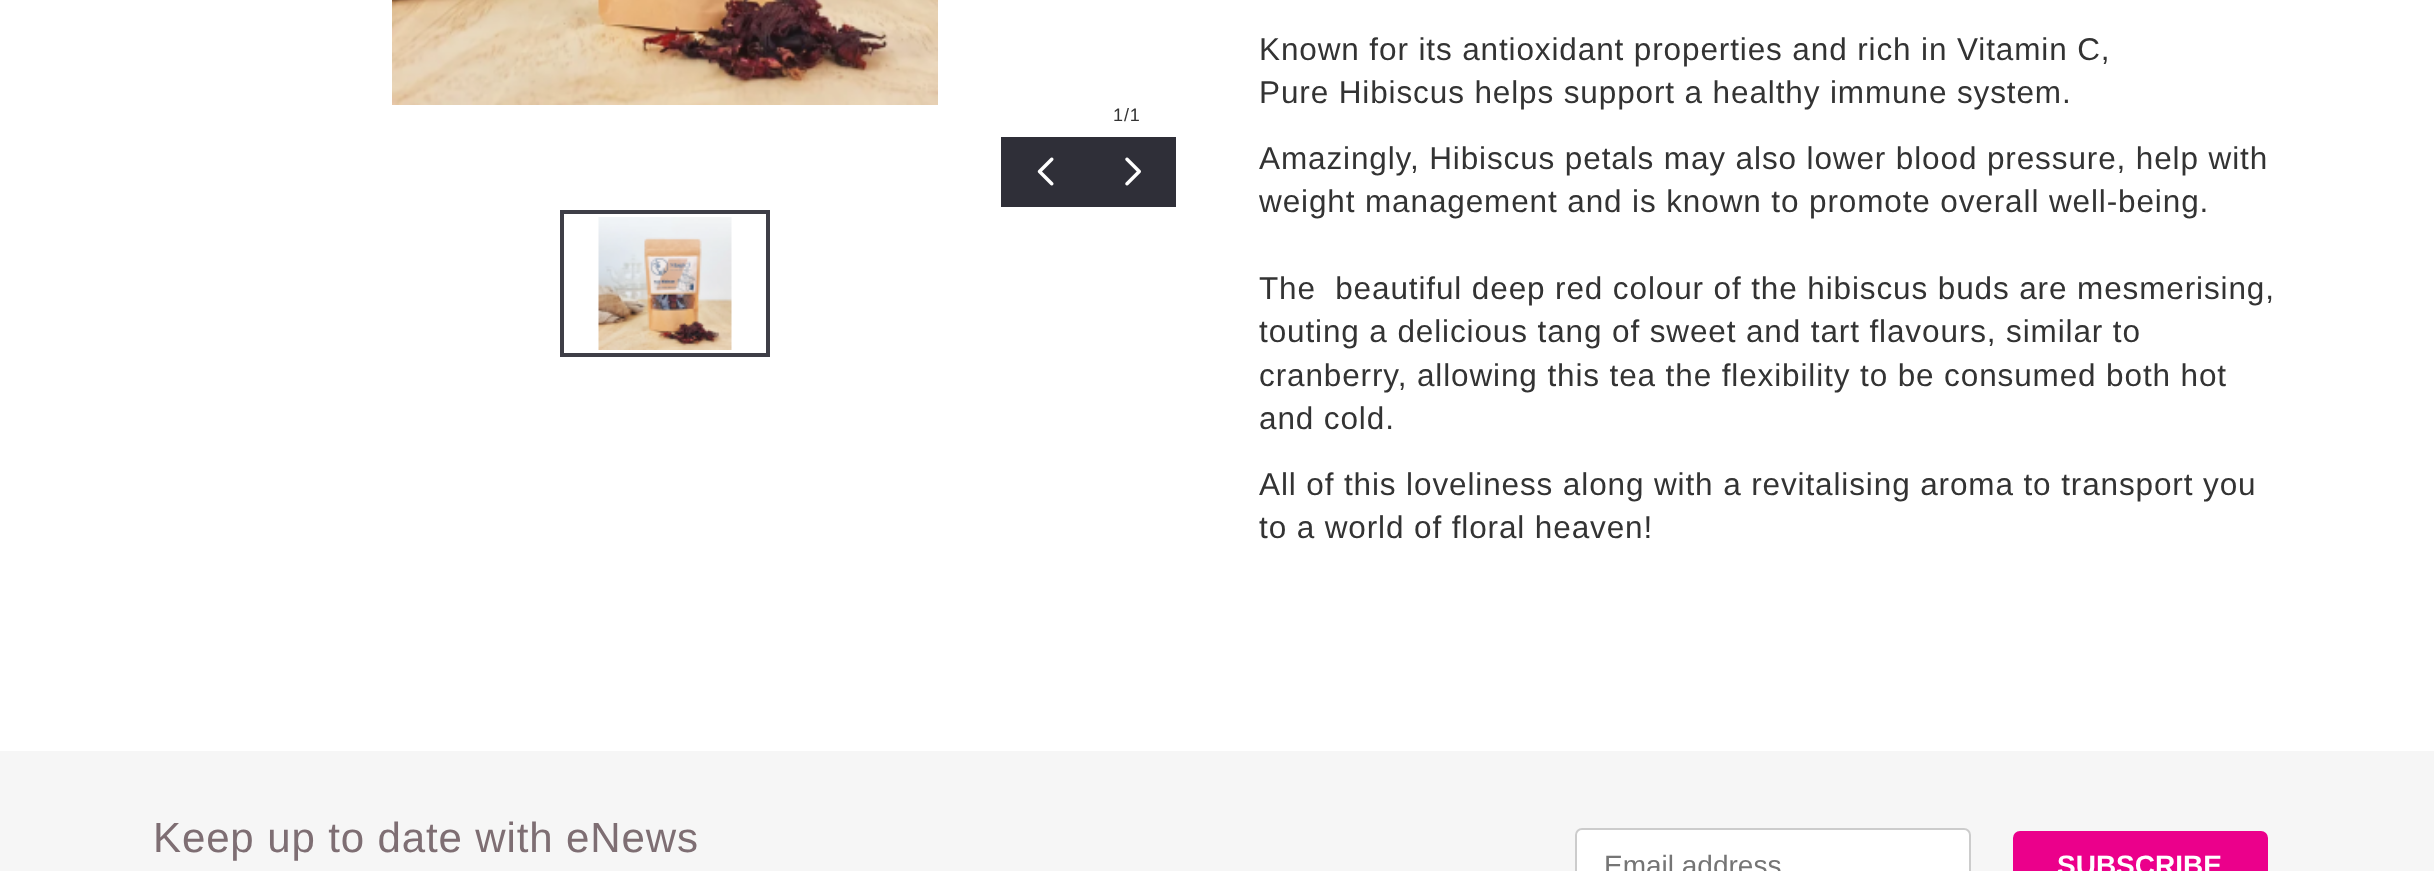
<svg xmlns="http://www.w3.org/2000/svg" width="2434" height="871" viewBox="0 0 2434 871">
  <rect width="100%" height="100%" fill="#ffffff"/>
  <image x="392" y="0" width="546" height="105" href="img1.png"/>
  <text x="1113" y="121" font-family="Liberation Sans" font-size="18" letter-spacing="0.88" fill="#333333">1/1</text>
  <rect x="1001" y="137" width="175" height="70" fill="#2f2f38"/>
  <image x="1037" y="157" width="17" height="29" href="img2.png"/>
  <image x="1125" y="157" width="16" height="29" href="img3.png"/>
  <rect x="562" y="212" width="206" height="143" fill="none" stroke="#3e3e47" stroke-width="4"/>
  <image x="598" y="217" width="134" height="133" href="img4.png"/>
  <text x="1259" y="60" font-family="Liberation Sans" font-size="31.5" letter-spacing="0.88" fill="#333333">Known for its antioxidant properties and rich in Vitamin C,</text>
  <text x="1259" y="103" font-family="Liberation Sans" font-size="31.5" letter-spacing="0.88" fill="#333333">Pure Hibiscus helps support a healthy immune system.</text>
  <text x="1259" y="169" font-family="Liberation Sans" font-size="31.5" letter-spacing="0.88" fill="#333333">Amazingly, Hibiscus petals may also lower blood pressure, help with</text>
  <text x="1259" y="212" font-family="Liberation Sans" font-size="31.5" letter-spacing="0.88" fill="#333333">weight management and is known to promote overall well-being.</text>
  <text x="1259" y="299" font-family="Liberation Sans" font-size="31.5" letter-spacing="0.88" fill="#333333" xml:space="preserve">The  beautiful deep red colour of the hibiscus buds are mesmerising,</text>
  <text x="1259" y="342" font-family="Liberation Sans" font-size="31.5" letter-spacing="0.88" fill="#333333">touting a delicious tang of sweet and tart flavours, similar to</text>
  <text x="1259" y="386" font-family="Liberation Sans" font-size="31.5" letter-spacing="0.88" fill="#333333">cranberry, allowing this tea the flexibility to be consumed both hot</text>
  <text x="1259" y="429" font-family="Liberation Sans" font-size="31.5" letter-spacing="0.88" fill="#333333">and cold.</text>
  <text x="1259" y="495" font-family="Liberation Sans" font-size="31.5" letter-spacing="0.88" fill="#333333">All of this loveliness along with a revitalising aroma to transport you</text>
  <text x="1259" y="538" font-family="Liberation Sans" font-size="31.5" letter-spacing="0.88" fill="#333333">to a world of floral heaven!</text>
  <rect x="0" y="751" width="2434" height="120" fill="#f6f6f6"/>
  <text x="153" y="852" font-family="Liberation Sans" font-size="42" letter-spacing="0.88" fill="#7e6e73">Keep up to date with eNews</text>
  <rect x="1576" y="829" width="394" height="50" rx="6" fill="#ffffff" stroke="#cccccc" stroke-width="2"/>
  <text x="1604" y="875" font-family="Liberation Sans" font-size="28" fill="#757575">Email address</text>
  <rect x="2014" y="832" width="253" height="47" rx="6" fill="#eb008b" stroke="#eb008b" stroke-width="2"/>
  <text x="2057" y="875" font-family="Liberation Sans" font-size="28" font-weight="bold" fill="#ffffff">SUBSCRIBE</text>
</svg>
